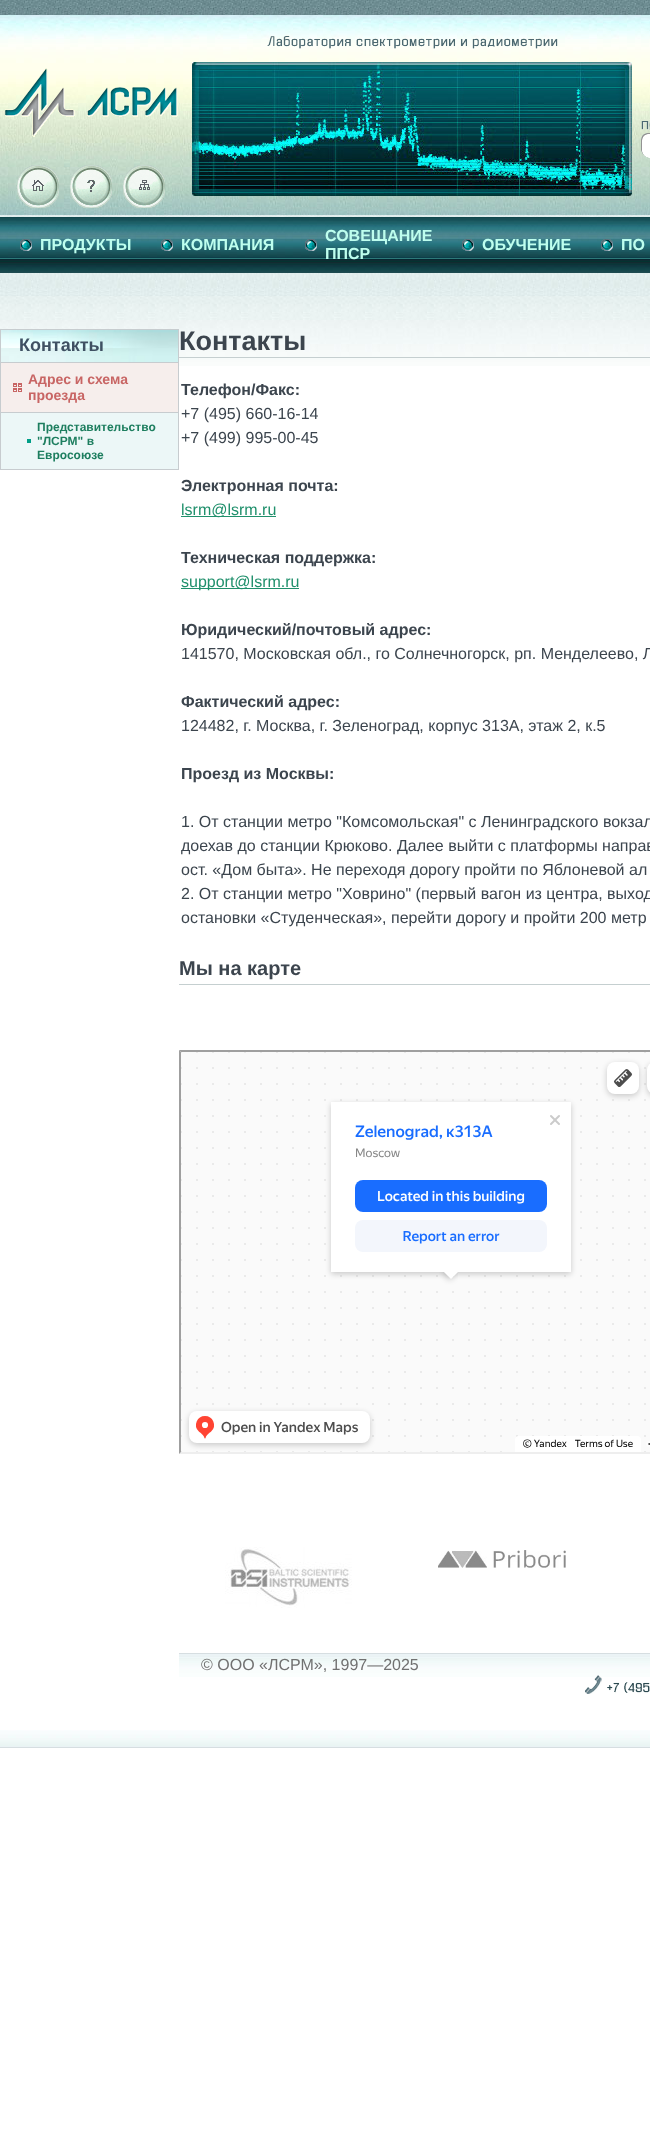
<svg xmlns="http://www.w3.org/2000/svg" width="650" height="2146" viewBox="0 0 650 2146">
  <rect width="100%" height="100%" fill="#ffffff"/>
  <image x="0" y="0" width="650" height="366" href="img1.png"/>
  <image x="0" y="15" width="183" height="200" href="img2.png"/>
  <image x="5" y="68" width="173" height="69" href="img3.png"/>
  <image x="17" y="165" width="42" height="43" href="img4.png"/>
  <image x="70" y="165" width="42" height="43" href="img5.png"/>
  <image x="123" y="165" width="42" height="43" href="img6.png"/>
  <image x="183" y="15" width="458" height="200" href="img7.png"/>
  <image x="267" y="35" width="291" height="14" href="img8.png"/>
  <image x="192" y="62" width="440" height="134" href="img9.png"/>
  <image x="641" y="15" width="9" height="200" href="img10.png"/>
  <image x="641" y="121" width="9" height="9" href="img11.png"/>
  <image x="641" y="133" width="9" height="25" href="img12.png"/>
  <image x="0" y="217" width="141" height="56" href="img13.png"/>
  <image x="20" y="239" width="12" height="12" href="img14.png"/>
  <text x="40" y="250" font-family="Liberation Sans" font-size="16" font-weight="bold" fill="#befeee">ПРОДУКТЫ</text>
  <image x="141" y="217" width="144" height="56" href="img15.png"/>
  <image x="161" y="239" width="12" height="12" href="img14.png"/>
  <text x="181" y="250" font-family="Liberation Sans" font-size="16" font-weight="bold" fill="#befeee">КОМПАНИЯ</text>
  <image x="285" y="217" width="157" height="56" href="img16.png"/>
  <image x="305" y="239" width="12" height="12" href="img14.png"/>
  <text x="325" y="241" font-family="Liberation Sans" font-size="16" font-weight="bold" fill="#befeee">СОВЕЩАНИЕ</text>
  <text x="325" y="259" font-family="Liberation Sans" font-size="16" font-weight="bold" fill="#befeee">ППСР</text>
  <image x="442" y="217" width="139" height="56" href="img17.png"/>
  <image x="462" y="239" width="12" height="12" href="img14.png"/>
  <text x="482" y="250" font-family="Liberation Sans" font-size="16" font-weight="bold" fill="#befeee">ОБУЧЕНИЕ</text>
  <image x="581" y="217" width="69" height="56" href="img18.png"/>
  <image x="601" y="239" width="12" height="12" href="img14.png"/>
  <text x="621" y="250" font-family="Liberation Sans" font-size="16" font-weight="bold" fill="#befeee">ПО</text>
  <image x="0" y="1730" width="650" height="18" href="img19.png"/>
  <rect x="0" y="329" width="179" height="1" fill="#c7cccf"/>
  <rect x="178" y="329" width="1" height="141" fill="#c7cccf"/>
  <rect x="0" y="469" width="179" height="1" fill="#c7cccf"/>
  <rect x="0" y="329" width="1" height="141" fill="#c7cccf"/>
  <image x="1" y="330" width="177" height="32" href="img20.png"/>
  <rect x="0" y="362" width="179" height="1" fill="#c7cccf"/>
  <text x="19" y="351" font-family="Liberation Sans" font-size="18" font-weight="bold" fill="#3f5163">Контакты</text>
  <rect x="1" y="363" width="177" height="49" fill="#f6eeec"/>
  <rect x="0" y="412" width="179" height="1" fill="#c7cccf"/>
  <image x="13" y="383" width="9" height="9" href="img21.png"/>
  <text x="28" y="384" font-family="Liberation Sans" font-size="14" font-weight="bold" fill="#c86564">Адрес и схема</text>
  <text x="28" y="400" font-family="Liberation Sans" font-size="14" font-weight="bold" fill="#c86564">проезда</text>
  <rect x="1" y="413" width="177" height="56" fill="#ecf7f7"/>
  <rect x="27" y="439" width="4" height="4" fill="#009f87"/>
  <text x="37" y="431" font-family="Liberation Sans" font-size="12" font-weight="bold" fill="#1d7e5f">Представительство</text>
  <text x="37" y="445" font-family="Liberation Sans" font-size="12" font-weight="bold" fill="#1d7e5f">"ЛСРМ" в</text>
  <text x="37" y="459" font-family="Liberation Sans" font-size="12" font-weight="bold" fill="#1d7e5f">Евросоюзе</text>
  <rect x="179" y="357" width="471" height="1" fill="#c5cfd0"/>
  <text x="179" y="350" font-family="Liberation Sans" font-size="27" font-weight="bold" fill="#3c454e">Контакты</text>
  <text x="181" y="395" font-family="Liberation Sans" font-size="16" font-weight="bold" fill="#3c454e">Телефон/Факс:</text>
  <text x="181" y="419" font-family="Liberation Sans" font-size="16" fill="#3c454e">+7 (495) 660-16-14</text>
  <text x="181" y="443" font-family="Liberation Sans" font-size="16" fill="#3c454e">+7 (499) 995-00-45</text>
  <text x="181" y="491" font-family="Liberation Sans" font-size="16" font-weight="bold" fill="#3c454e">Электронная почта:</text>
  <rect x="181" y="516" width="95" height="1" fill="#20906c"/>
  <text x="181" y="515" font-family="Liberation Sans" font-size="16" fill="#20906c">lsrm@lsrm.ru</text>
  <text x="181" y="563" font-family="Liberation Sans" font-size="16" font-weight="bold" fill="#3c454e">Техническая поддержка:</text>
  <rect x="181" y="588" width="118" height="1" fill="#20906c"/>
  <text x="181" y="587" font-family="Liberation Sans" font-size="16" fill="#20906c">support@lsrm.ru</text>
  <text x="181" y="635" font-family="Liberation Sans" font-size="16" font-weight="bold" fill="#3c454e">Юридический/почтовый адрес:</text>
  <text x="181" y="659" font-family="Liberation Sans" font-size="16" fill="#3c454e">141570, Московская обл., го Солнечногорск, рп. Менделеево, Л</text>
  <text x="181" y="707" font-family="Liberation Sans" font-size="16" font-weight="bold" fill="#3c454e">Фактический адрес:</text>
  <text x="181" y="731" font-family="Liberation Sans" font-size="16" fill="#3c454e">124482, г. Москва, г. Зеленоград, корпус 313А, этаж 2, к.5</text>
  <text x="181" y="779" font-family="Liberation Sans" font-size="16" font-weight="bold" fill="#3c454e">Проезд из Москвы:</text>
  <text x="181" y="827" font-family="Liberation Sans" font-size="16" fill="#3c454e">1. От станции метро "Комсомольская" с Ленинградского вокзал</text>
  <text x="181" y="851" font-family="Liberation Sans" font-size="16" fill="#3c454e">доехав до станции Крюково. Далее выйти с платформы направ</text>
  <text x="181" y="875" font-family="Liberation Sans" font-size="16" fill="#3c454e">ост. «Дом быта». Не переходя дорогу пройти по Яблоневой ал</text>
  <text x="181" y="899" font-family="Liberation Sans" font-size="16" fill="#3c454e">2. От станции метро "Ховрино" (первый вагон из центра, выход</text>
  <text x="181" y="923" font-family="Liberation Sans" font-size="16" fill="#3c454e">остановки «Студенческая», перейти дорогу и пройти 200 метр</text>
  <rect x="179" y="984" width="471" height="1" fill="#c5cfd0"/>
  <text x="179" y="975" font-family="Liberation Sans" font-size="20" font-weight="bold" fill="#3c454e">Мы на карте</text>
  <path d="M179 1050H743L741 1052H181Z" fill="#9f9f9f"/>
  <path d="M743 1454H179L181 1452H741Z" fill="#eeeeee"/>
  <path d="M179 1454V1050L181 1052V1452Z" fill="#9f9f9f"/>
  <image x="181" y="1052" width="469" height="400" href="img22.png"/>
  <image x="225" y="1547" width="127" height="61" href="img23.png"/>
  <image x="438" y="1550" width="128" height="18" href="img24.png"/>
  <image x="179" y="1653" width="471" height="24" href="img25.png"/>
  <text x="201" y="1670" font-family="Liberation Sans" font-size="16" fill="#717171">© ООО «ЛСРМ», 1997—2025</text>
  <image x="585" y="1675" width="65" height="19" href="img26.png"/>
</svg>
